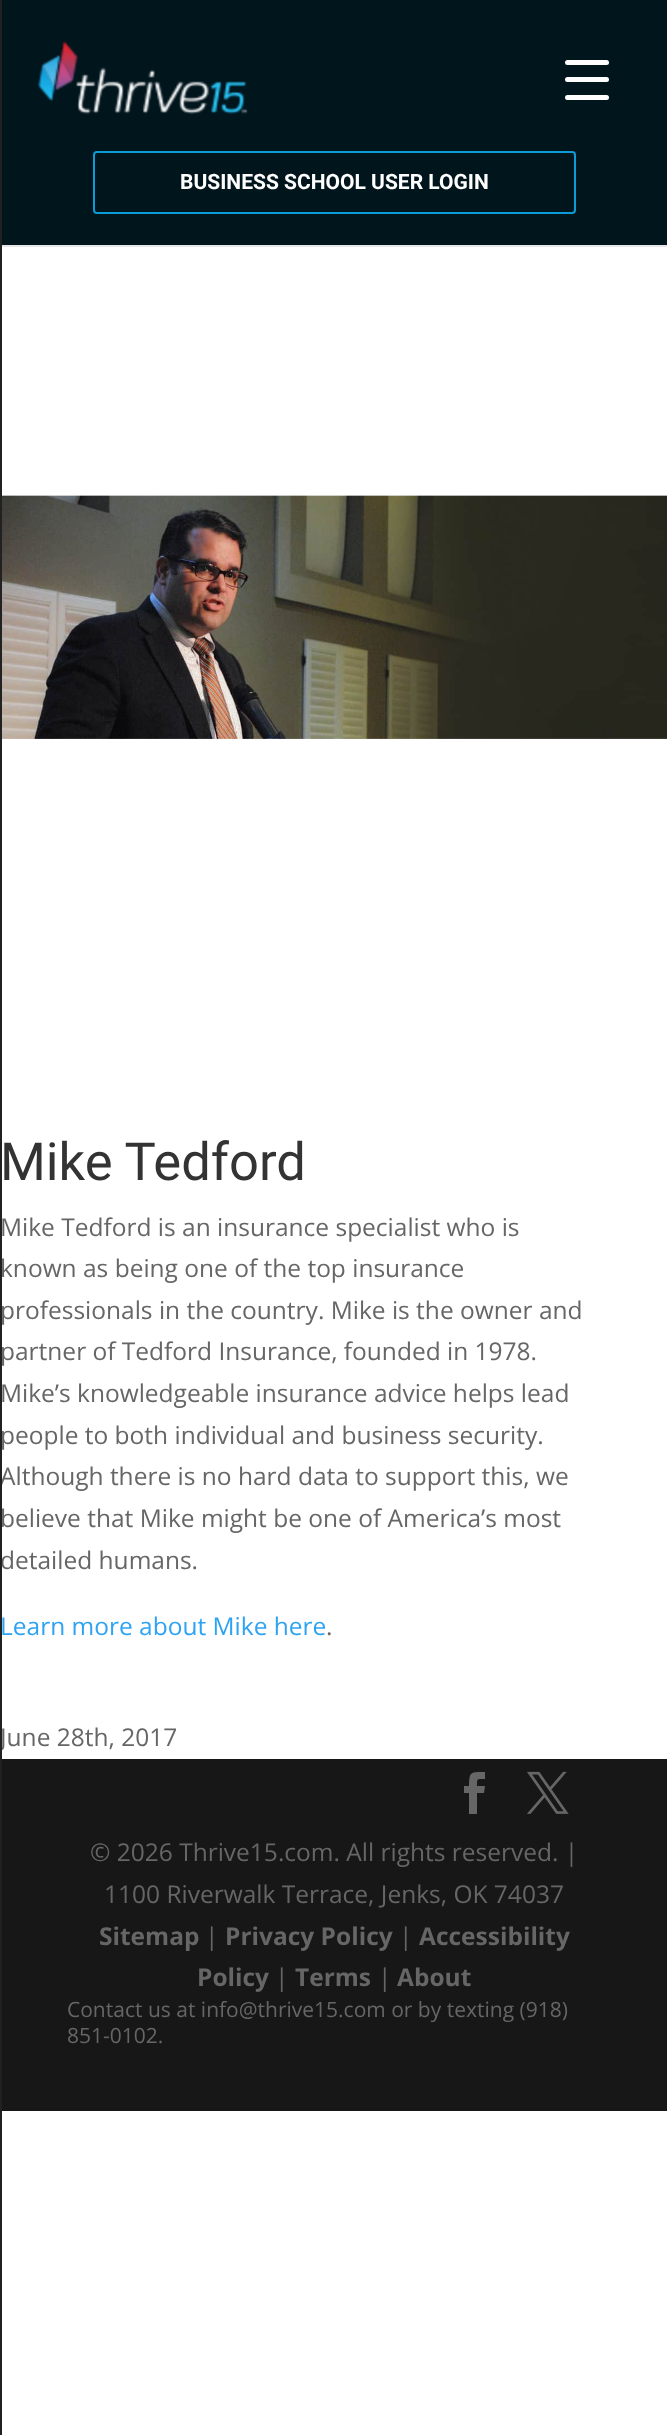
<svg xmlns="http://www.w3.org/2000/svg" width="667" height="2435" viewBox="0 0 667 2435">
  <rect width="100%" height="100%" fill="#ffffff"/>
  <path d="M0 245V247H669V2H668V245Z" fill="#e6e6e6"/>
  <text x="0" y="1485" font-family="Open Sans" font-size="24.5" fill="#666666">Although there is no hard data to support this, we</text>
  <text x="0" y="1569" font-family="Open Sans" font-size="24.5" fill="#666666">detailed humans.</text>
  <text x="0" y="1746" font-family="Open Sans" font-size="24.5" fill="#666666">June 28th, 2017</text>
  <rect x="0" y="0" width="2" height="2435" fill="#212121"/>
  <rect x="2" y="0" width="665" height="245" fill="#01151d"/>
  <rect x="565" y="77" width="44" height="5" rx="2.5" fill="#ffffff"/>
  <rect x="565" y="60" width="44" height="5" rx="2.5" fill="#ffffff"/>
  <rect x="565" y="95" width="44" height="5" rx="2.5" fill="#ffffff"/>
  <image x="37" y="41" width="211" height="74" href="img1.png"/>
  <rect x="94" y="152" width="481" height="61" rx="3" fill="none" stroke="#0b9bd7" stroke-width="2"/>
  <text x="180" y="189" font-family="Roboto" font-size="21" font-weight="bold" fill="#ffffff">BUSINESS SCHOOL USER LOGIN</text>
  <image x="2" y="495" width="665" height="244" href="img2.png"/>
  <text x="0" y="1180" font-family="Roboto" font-size="52.5" fill="#333333">Mike Tedford</text>
  <text x="0" y="1236" font-family="Open Sans" font-size="24.5" fill="#666666">Mike Tedford is an insurance specialist who is</text>
  <text x="0" y="1277" font-family="Open Sans" font-size="24.5" fill="#666666">known as being one of the top insurance</text>
  <text x="0" y="1319" font-family="Open Sans" font-size="24.5" fill="#666666">professionals in the country. Mike is the owner and</text>
  <text x="0" y="1360" font-family="Open Sans" font-size="24.5" fill="#666666">partner of Tedford Insurance, founded in 1978.</text>
  <text x="0" y="1402" font-family="Open Sans" font-size="24.5" fill="#666666">Mike’s knowledgeable insurance advice helps lead</text>
  <text x="0" y="1444" font-family="Open Sans" font-size="24.5" fill="#666666">people to both individual and business security.</text>
  <text x="0" y="1527" font-family="Open Sans" font-size="24.5" fill="#666666">believe that Mike might be one of America’s most</text>
  <text x="0" y="1635" font-family="Open Sans" font-size="24.5" fill="#2ea3f2">Learn more about Mike here</text>
  <text x="326" y="1635" font-family="Open Sans" font-size="24.5" fill="#666666">.</text>
  <rect x="2" y="1759" width="665" height="352" fill="#171717"/>
  <path d="M469 1814H477V1793H484L485 1786H477C477 1778 477 1779 485 1779V1772C471 1772 469 1771 469 1786H464V1793H469Z" fill="#666666"/>
  <image x="527" y="1771" width="42" height="43" href="img3.png"/>
  <text x="90" y="1861" font-family="Open Sans" font-size="24.5" fill="#666666">© 2026 Thrive15.com. All rights reserved. |</text>
  <text x="104" y="1903" font-family="Open Sans" font-size="24.5" fill="#666666">1100 Riverwalk Terrace, Jenks, OK 74037</text>
  <text x="99" y="1945" font-family="Open Sans" font-size="24.5" font-weight="bold" fill="#666666">Sitemap</text>
  <text x="205" y="1945" font-family="Open Sans" font-size="24.5" fill="#666666">|</text>
  <text x="225" y="1945" font-family="Open Sans" font-size="24.5" font-weight="bold" fill="#666666">Privacy Policy</text>
  <text x="399" y="1945" font-family="Open Sans" font-size="24.5" fill="#666666">|</text>
  <text x="419" y="1945" font-family="Open Sans" font-size="24.5" font-weight="bold" fill="#666666">Accessibility</text>
  <text x="197" y="1986" font-family="Open Sans" font-size="24.5" font-weight="bold" fill="#666666">Policy</text>
  <text x="275" y="1986" font-family="Open Sans" font-size="24.5" fill="#666666">|</text>
  <text x="295" y="1986" font-family="Open Sans" font-size="24.5" font-weight="bold" fill="#666666">Terms</text>
  <text x="378" y="1986" font-family="Open Sans" font-size="24.5" fill="#666666">|</text>
  <text x="397" y="1986" font-family="Open Sans" font-size="24.5" font-weight="bold" fill="#666666">About</text>
  <text x="67" y="2017" font-family="Open Sans" font-size="21" fill="#666666">Contact us at info@thrive15.com or by texting (918)</text>
  <text x="67" y="2043" font-family="Open Sans" font-size="21" fill="#666666">851-0102.</text>
</svg>
